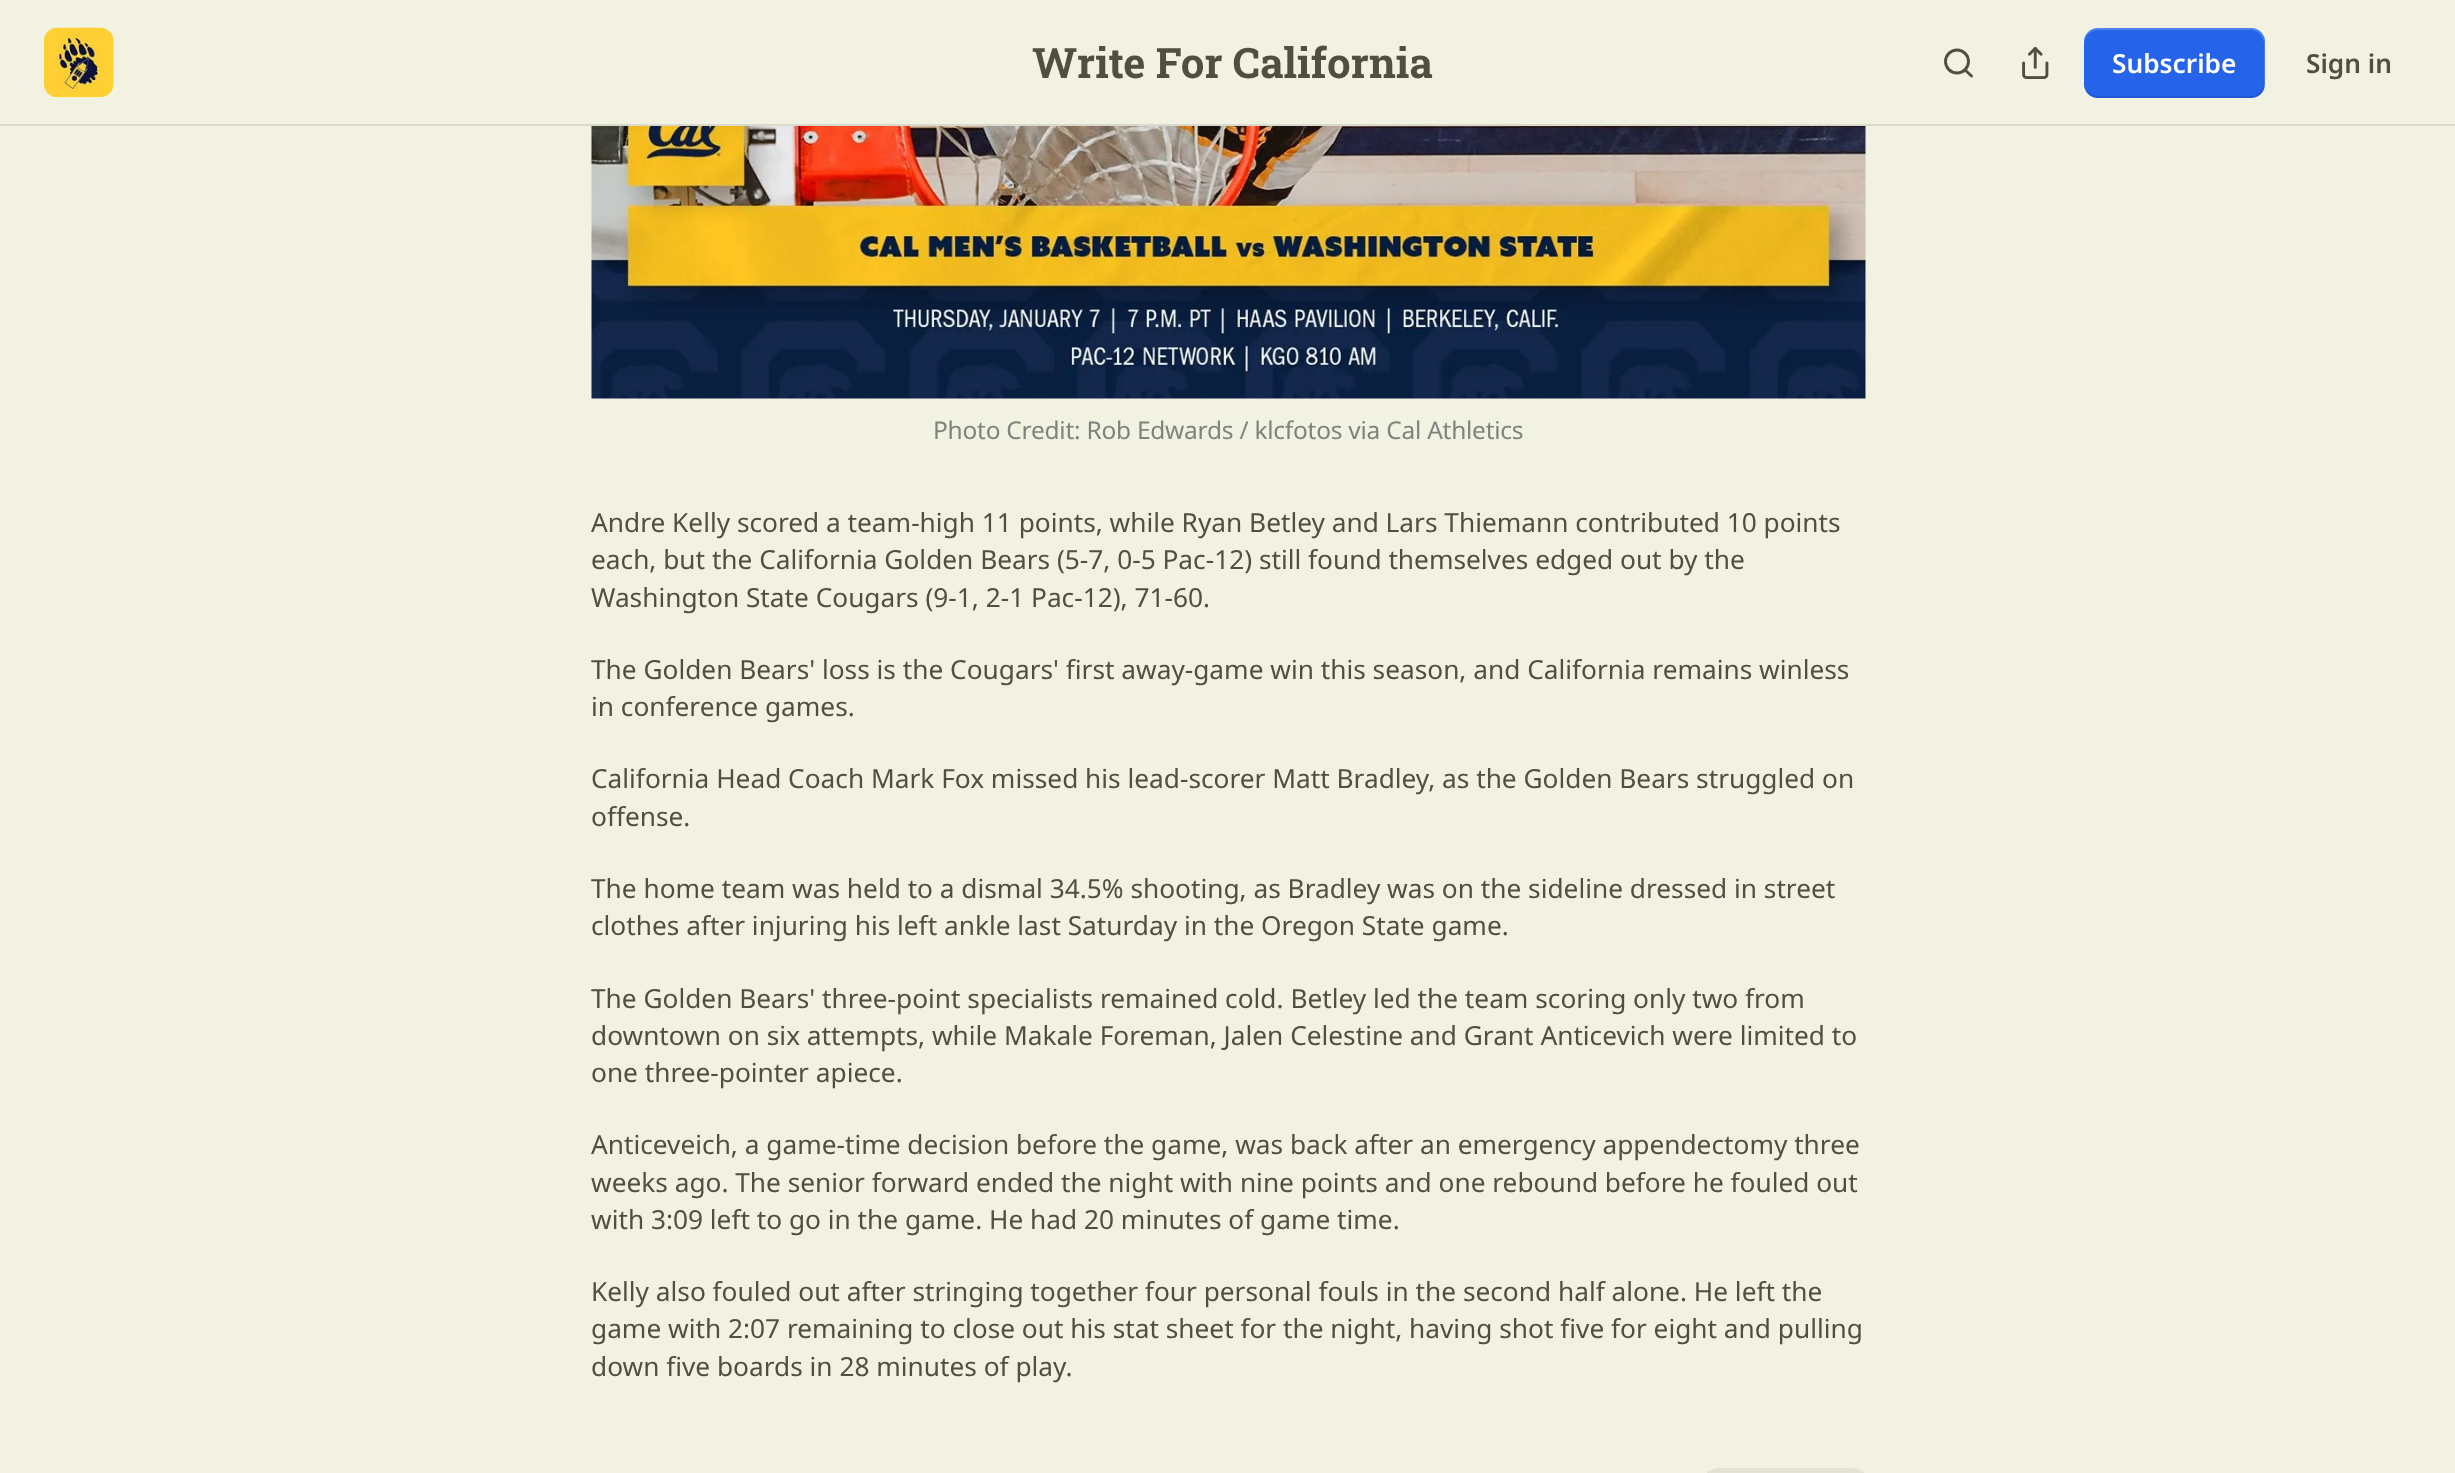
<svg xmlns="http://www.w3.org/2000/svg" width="2455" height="1473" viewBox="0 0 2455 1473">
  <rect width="100%" height="100%" fill="#f2f2e3"/>
  <rect x="0" y="124" width="2455" height="2" fill="#dadacc"/>
  <rect x="44" y="28" width="70" height="70" rx="14" fill="#ffffff"/>
  <image x="43" y="27" width="71" height="71" href="img1.png"/>
  <text x="1032" y="78" font-family="Roboto Slab" font-size="42" font-weight="bold" fill="#505041">Write For California</text>
  <circle cx="1957" cy="61.5" r="11.5" fill="none" stroke="#505041" stroke-width="2.9"/>
  <path d="M1971.5 76L1965 70" fill="none" stroke="#505041" stroke-width="2.9" stroke-linecap="round" stroke-linejoin="round"/>
  <image x="2022" y="47" width="27" height="32" href="img2.png"/>
  <rect x="2084" y="28" width="181" height="70" rx="14" fill="#2563eb"/>
  <path d="M2084 82V84C2084 92 2090 98 2098 98H2251C2259 98 2265 92 2265 84V42C2265 39 2264 36 2263 34C2264 36 2264 38 2264 40V82C2264 90 2258 96 2250 96H2098C2091 96 2084 90 2084 82Z" fill="#000000" fill-opacity="0.1"/>
  <path d="M2098 30H2250C2258 30 2264 36 2264 44V86C2264 88 2264 90 2263 92C2264 90 2265 87 2265 84V42C2265 34 2259 28 2251 28H2098C2090 28 2084 34 2084 42V44C2084 36 2091 30 2098 30Z" fill="#ffffff" fill-opacity="0.2"/>
  <text x="2112" y="73" font-family="Noto Sans" font-size="26.25" font-weight="600" fill="#ffffff">Subscribe</text>
  <text x="2306" y="73" font-family="Noto Sans" font-size="26.25" font-weight="600" fill="#505041">Sign in</text>
  <image x="591" y="126" width="1275" height="273" href="img3.png"/>
  <text x="933" y="439" font-family="Noto Sans" font-size="24.5" letter-spacing="-0.25" fill="#81827c">Photo Credit: Rob Edwards / klcfotos via Cal Athletics</text>
  <text x="591" y="532" font-family="Noto Sans" font-size="26.25" fill="#505041">Andre Kelly scored a team-high 11 points, while Ryan Betley and Lars Thiemann contributed 10 points</text>
  <text x="591" y="569" font-family="Noto Sans" font-size="26.25" fill="#505041">each, but the California Golden Bears (5-7, 0-5 Pac-12) still found themselves edged out by the</text>
  <text x="591" y="607" font-family="Noto Sans" font-size="26.25" fill="#505041">Washington State Cougars (9-1, 2-1 Pac-12), 71-60.</text>
  <text x="591" y="679" font-family="Noto Sans" font-size="26.25" fill="#505041">The Golden Bears' loss is the Cougars' first away-game win this season, and California remains winless</text>
  <text x="591" y="716" font-family="Noto Sans" font-size="26.25" fill="#505041">in conference games.</text>
  <text x="591" y="788" font-family="Noto Sans" font-size="26.25" fill="#505041">California Head Coach Mark Fox missed his lead-scorer Matt Bradley, as the Golden Bears struggled on</text>
  <text x="591" y="826" font-family="Noto Sans" font-size="26.25" fill="#505041">offense.</text>
  <text x="591" y="898" font-family="Noto Sans" font-size="26.25" fill="#505041">The home team was held to a dismal 34.5% shooting, as Bradley was on the sideline dressed in street</text>
  <text x="591" y="935" font-family="Noto Sans" font-size="26.25" fill="#505041">clothes after injuring his left ankle last Saturday in the Oregon State game.</text>
  <text x="591" y="1008" font-family="Noto Sans" font-size="26.25" fill="#505041">The Golden Bears' three-point specialists remained cold. Betley led the team scoring only two from</text>
  <text x="591" y="1045" font-family="Noto Sans" font-size="26.25" fill="#505041">downtown on six attempts, while Makale Foreman, Jalen Celestine and Grant Anticevich were limited to</text>
  <text x="591" y="1082" font-family="Noto Sans" font-size="26.25" fill="#505041">one three-pointer apiece.</text>
  <text x="591" y="1154" font-family="Noto Sans" font-size="26.25" fill="#505041">Anticeveich, a game-time decision before the game, was back after an emergency appendectomy three</text>
  <text x="591" y="1192" font-family="Noto Sans" font-size="26.25" fill="#505041">weeks ago. The senior forward ended the night with nine points and one rebound before he fouled out</text>
  <text x="591" y="1229" font-family="Noto Sans" font-size="26.25" fill="#505041">with 3:09 left to go in the game. He had 20 minutes of game time.</text>
  <text x="591" y="1301" font-family="Noto Sans" font-size="26.25" fill="#505041">Kelly also fouled out after stringing together four personal fouls in the second half alone. He left the</text>
  <text x="591" y="1338" font-family="Noto Sans" font-size="26.25" fill="#505041">game with 2:07 remaining to close out his stat sheet for the night, having shot five for eight and pulling</text>
  <text x="591" y="1376" font-family="Noto Sans" font-size="26.25" fill="#505041">down five boards in 28 minutes of play.</text>
  <rect x="1705" y="1468" width="161" height="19" rx="14" fill="#e3e3d5"/>
</svg>
